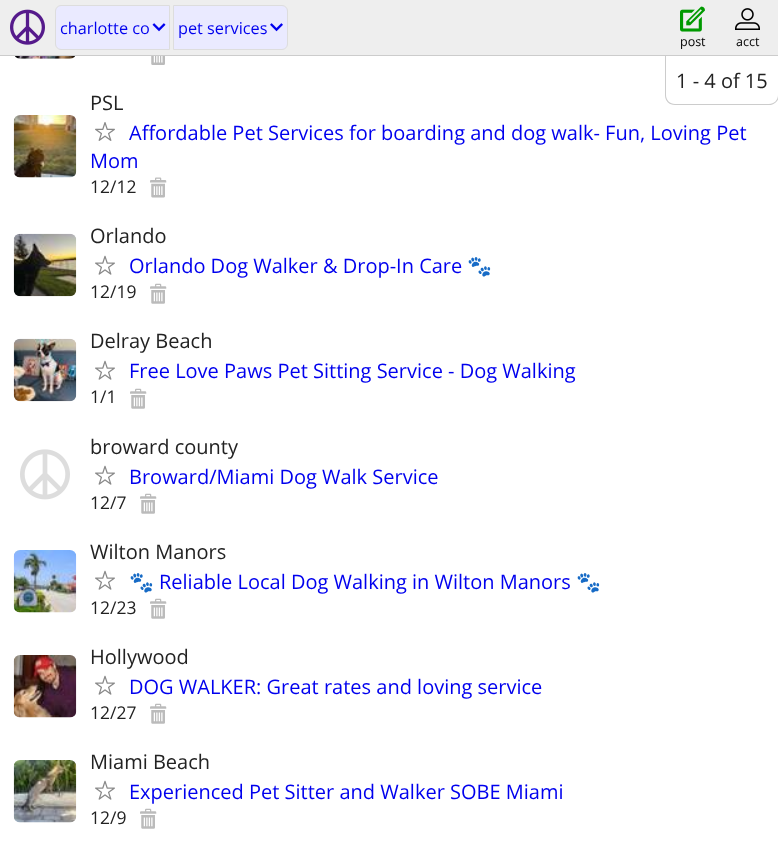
<svg xmlns="http://www.w3.org/2000/svg" width="778" height="861" viewBox="0 0 778 861">
  <rect width="100%" height="100%" fill="#ffffff"/>
  <rect x="0" y="0" width="778" height="55" fill="#eeeeee"/>
  <rect x="0" y="55" width="778" height="1" fill="#cccccc"/>
  <image x="10" y="9" width="35" height="36" href="img1.png"/>
  <path d="M61 5.5H169.5V49.5H61C58 49.5 55.5 47 55.5 44V11C55.5 8 58 5.5 61 5.5Z" fill="#eaeaff" stroke="#dddddd"/>
  <text x="60" y="34" font-family="Open Sans" font-size="16.25" fill="#0000ee">charlotte co</text>
  <image x="152" y="23" width="14" height="9" href="img2.png"/>
  <path d="M173.5 5.5H282C285 5.5 287.5 8 287.5 11V44C287.5 47 285 49.5 282 49.5H173.5Z" fill="#eaeaff" stroke="#dddddd"/>
  <text x="178" y="34" font-family="Open Sans" font-size="16.25" fill="#0000ee">pet services</text>
  <image x="270" y="23" width="13" height="9" href="img3.png"/>
  <image x="680" y="6" width="25" height="26" href="img4.png"/>
  <text x="680" y="46" font-family="Open Sans" font-size="12.5" fill="#000000">post</text>
  <image x="735" y="8" width="25" height="22" href="img5.png"/>
  <text x="736" y="46" font-family="Open Sans" font-size="12.5" fill="#000000">acct</text>
  <path d="M665 56H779V95C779 101 774 105 769 105H675C669 105 665 101 665 95ZM666 56H778V95C778 100 774 104 769 104H675C670 104 666 100 666 95Z" fill="#cccccc" fill-rule="evenodd"/>
  <text x="676" y="88" font-family="Open Sans" font-size="20" fill="#222222">1 - 4 of 15</text>
  <image x="15" y="56" width="60" height="3" href="img6.png"/>
  <image x="151" y="56" width="14" height="9" href="img7.png"/>
  <image x="13" y="115" width="64" height="63" href="img8.png"/>
  <text x="90" y="110" font-family="Open Sans" font-size="20" fill="#222222">PSL</text>
  <image x="95" y="122" width="20" height="19" href="img9.png"/>
  <text x="129" y="140" font-family="Open Sans" font-size="20" fill="#0000ee">Affordable Pet Services for boarding and dog walk- Fun, Loving Pet</text>
  <text x="90" y="168" font-family="Open Sans" font-size="20" fill="#0000ee">Mom</text>
  <text x="90" y="193" font-family="Open Sans" font-size="17.5" fill="#222222">12/12</text>
  <image x="150" y="177" width="17" height="21" href="img10.png"/>
  <image x="13" y="233" width="64" height="64" href="img11.png"/>
  <text x="90" y="243" font-family="Open Sans" font-size="20" fill="#222222">Orlando</text>
  <image x="95" y="255" width="20" height="20" href="img12.png"/>
  <text x="129" y="273" font-family="Open Sans" font-size="20" fill="#0000ee">Orlando Dog Walker &amp; Drop-In Care</text>
  <text x="467" y="273" font-family="Noto Color Emoji" font-size="20" fill="#0000ee">🐾</text>
  <text x="90" y="298" font-family="Open Sans" font-size="17.5" fill="#222222">12/19</text>
  <image x="150" y="283" width="17" height="21" href="img13.png"/>
  <image x="13" y="338" width="64" height="64" href="img14.png"/>
  <text x="90" y="348" font-family="Open Sans" font-size="20" fill="#222222">Delray Beach</text>
  <image x="95" y="360" width="20" height="20" href="img12.png"/>
  <text x="129" y="378" font-family="Open Sans" font-size="20" fill="#0000ee">Free Love Paws Pet Sitting Service - Dog Walking</text>
  <text x="90" y="403" font-family="Open Sans" font-size="17.5" fill="#222222">1/1</text>
  <image x="130" y="388" width="17" height="21" href="img13.png"/>
  <image x="20" y="449" width="50" height="51" href="img15.png"/>
  <text x="90" y="454" font-family="Open Sans" font-size="20" fill="#222222">broward county</text>
  <image x="95" y="465" width="20" height="20" href="img12.png"/>
  <text x="129" y="484" font-family="Open Sans" font-size="20" fill="#0000ee">Broward/Miami Dog Walk Service</text>
  <text x="90" y="509" font-family="Open Sans" font-size="17.5" fill="#222222">12/7</text>
  <image x="140" y="493" width="17" height="21" href="img13.png"/>
  <image x="13" y="550" width="64" height="63" href="img16.png"/>
  <text x="90" y="559" font-family="Open Sans" font-size="20" fill="#222222">Wilton Manors</text>
  <image x="95" y="570" width="20" height="20" href="img12.png"/>
  <text x="129" y="589" font-family="Noto Color Emoji" font-size="20" fill="#0000ee">🐾</text>
  <text x="159" y="589" font-family="Open Sans" font-size="20" fill="#0000ee">Reliable Local Dog Walking in Wilton Manors</text>
  <text x="576" y="589" font-family="Noto Color Emoji" font-size="20" fill="#0000ee">🐾</text>
  <text x="90" y="614" font-family="Open Sans" font-size="17.5" fill="#222222">12/23</text>
  <image x="150" y="598" width="17" height="21" href="img13.png"/>
  <image x="13" y="655" width="64" height="63" href="img17.png"/>
  <text x="90" y="664" font-family="Open Sans" font-size="20" fill="#222222">Hollywood</text>
  <image x="95" y="675" width="20" height="20" href="img12.png"/>
  <text x="129" y="694" font-family="Open Sans" font-size="20" fill="#0000ee">DOG WALKER: Great rates and loving service</text>
  <text x="90" y="719" font-family="Open Sans" font-size="17.5" fill="#222222">12/27</text>
  <image x="150" y="703" width="17" height="21" href="img13.png"/>
  <image x="13" y="760" width="64" height="63" href="img18.png"/>
  <text x="90" y="769" font-family="Open Sans" font-size="20" fill="#222222">Miami Beach</text>
  <image x="95" y="780" width="20" height="20" href="img12.png"/>
  <text x="129" y="799" font-family="Open Sans" font-size="20" fill="#0000ee">Experienced Pet Sitter and Walker SOBE Miami</text>
  <text x="90" y="824" font-family="Open Sans" font-size="17.5" fill="#222222">12/9</text>
  <image x="140" y="808" width="17" height="21" href="img13.png"/>
</svg>
